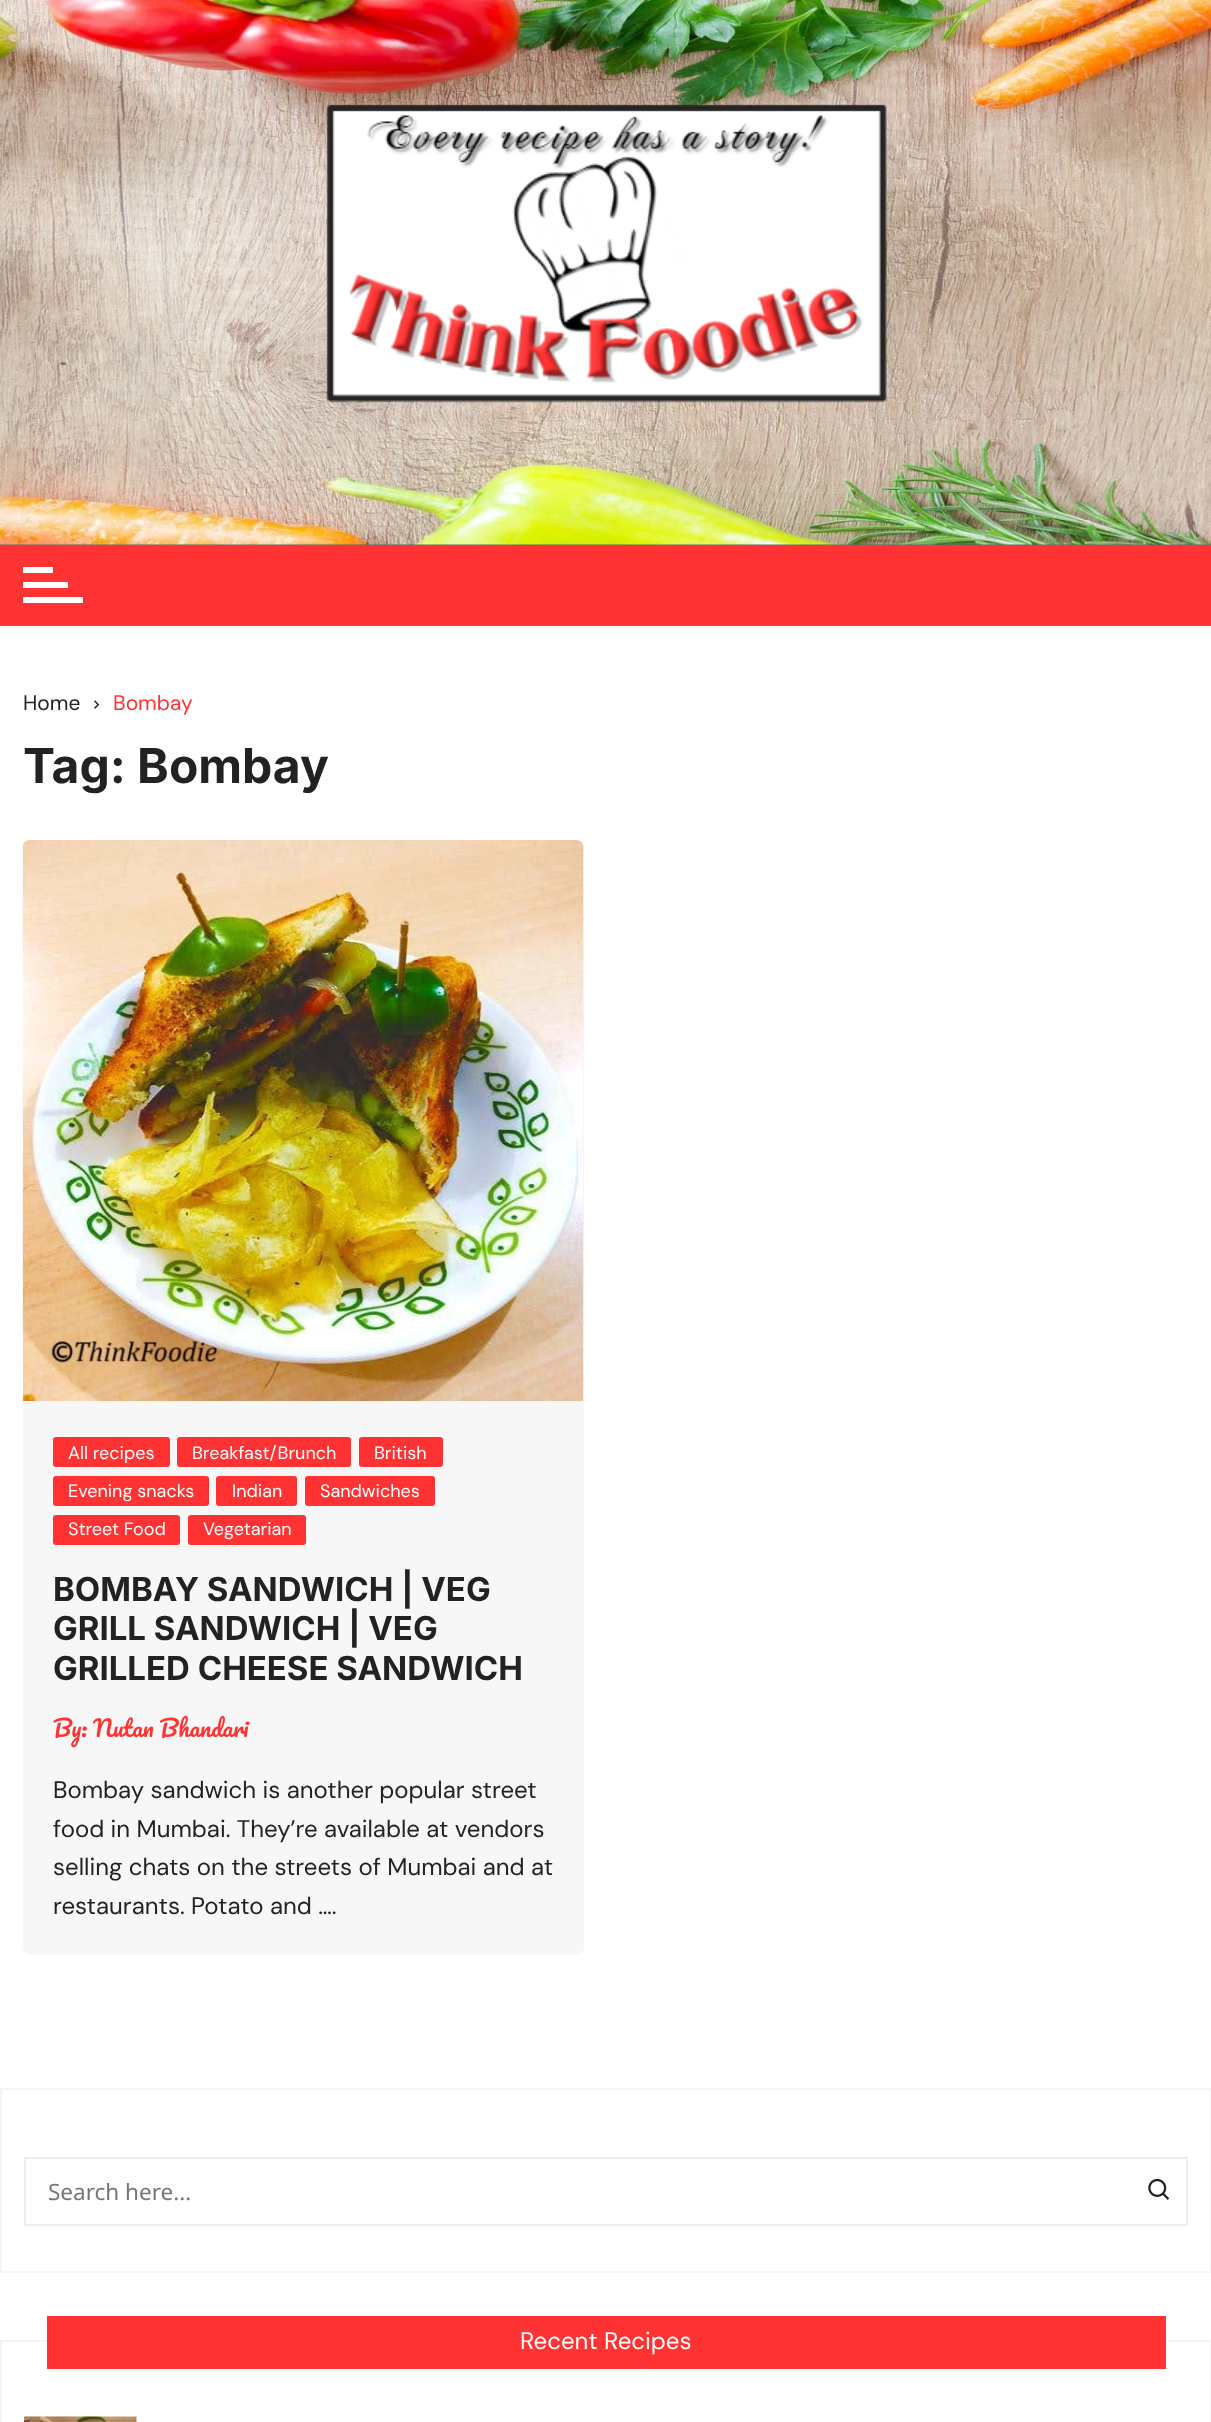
<svg xmlns="http://www.w3.org/2000/svg" width="1211" height="2422" viewBox="0 0 1211 2422">
  <rect width="100%" height="100%" fill="#ffffff"/>
  <rect x="0" y="544" width="1211" height="1" fill="#666666"/>
  <image x="0" y="0" width="1211" height="545" href="img1.png"/>
  <image x="326" y="104" width="561" height="299" href="img2.png"/>
  <rect x="0" y="545" width="1211" height="81" fill="#ff3333"/>
  <rect x="23" y="567" width="30" height="6" fill="#ffffff"/>
  <rect x="23" y="582" width="45" height="6" fill="#ffffff"/>
  <rect x="23" y="597" width="60" height="6" fill="#ffffff"/>
  <text x="23" y="710" font-family="DM Sans" font-size="21" fill="#222222">Home</text>
  <image x="94" y="700" width="6" height="9" href="img3.png"/>
  <text x="113" y="710" font-family="DM Sans" font-size="21" fill="#ff3333">Bombay</text>
  <text x="23" y="783" font-family="Inter" font-size="48" font-weight="bold" fill="#222222">Tag: Bombay</text>
  <path d="M31 840H576C580.5 840 584 843.5 584 848V1401H23V848C23 843.5 26.5 840 31 840Z" fill="#f5f5f5"/>
  <image x="22" y="840" width="562" height="561" href="img4.png"/>
  <path d="M23 1401H584V1947C584 1951.5 580.5 1955 576 1955H31C26.5 1955 23 1951.5 23 1947Z" fill="#f7f7f7"/>
  <rect x="53" y="1437" width="117" height="30" rx="3" fill="#ff3333"/>
  <text x="68" y="1459" font-family="DM Sans" font-size="18" fill="#ffffff">All recipes</text>
  <rect x="177" y="1437" width="174" height="30" rx="3" fill="#ff3333"/>
  <text x="192" y="1459" font-family="DM Sans" font-size="18" fill="#ffffff">Breakfast/Brunch</text>
  <rect x="359" y="1437" width="84" height="30" rx="3" fill="#ff3333"/>
  <text x="374" y="1459" font-family="DM Sans" font-size="18" fill="#ffffff">British</text>
  <rect x="53" y="1476" width="156" height="30" rx="3" fill="#ff3333"/>
  <text x="68" y="1497" font-family="DM Sans" font-size="18" fill="#ffffff">Evening snacks</text>
  <rect x="216" y="1476" width="81" height="30" rx="3" fill="#ff3333"/>
  <text x="232" y="1497" font-family="DM Sans" font-size="18" fill="#ffffff">Indian</text>
  <rect x="305" y="1476" width="130" height="30" rx="3" fill="#ff3333"/>
  <text x="320" y="1497" font-family="DM Sans" font-size="18" fill="#ffffff">Sandwiches</text>
  <rect x="53" y="1515" width="127" height="30" rx="3" fill="#ff3333"/>
  <text x="68" y="1535" font-family="DM Sans" font-size="18" fill="#ffffff">Street Food</text>
  <rect x="188" y="1515" width="118" height="30" rx="3" fill="#ff3333"/>
  <text x="203" y="1535" font-family="DM Sans" font-size="18" fill="#ffffff">Vegetarian</text>
  <text x="53" y="1601" font-family="Inter" font-size="33" font-weight="bold" fill="#222222">BOMBAY SANDWICH | VEG</text>
  <text x="53" y="1640" font-family="Inter" font-size="33" font-weight="bold" fill="#222222">GRILL SANDWICH | VEG</text>
  <text x="53" y="1680" font-family="Inter" font-size="33" font-weight="bold" fill="#222222">GRILLED CHEESE SANDWICH</text>
  <text x="53" y="1737" font-family="Pacifico" font-size="22.5" fill="#ff3333">By:</text>
  <text x="93" y="1737" font-family="Pacifico" font-size="22.5" fill="#ff3333">Nutan Bhandari</text>
  <text x="53" y="1798" font-family="DM Sans" font-size="24" fill="#222222">Bombay sandwich is another popular street</text>
  <text x="53" y="1837" font-family="DM Sans" font-size="24" fill="#222222">food in Mumbai. They’re available at vendors</text>
  <text x="53" y="1875" font-family="DM Sans" font-size="24" fill="#222222">selling chats on the streets of Mumbai and at</text>
  <text x="53" y="1914" font-family="DM Sans" font-size="24" fill="#222222">restaurants. Potato and ….</text>
  <rect x="1" y="2089" width="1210" height="183" fill="none" stroke="#f5f5f5" stroke-width="2"/>
  <rect x="25" y="2158" width="1162" height="67" fill="none" stroke="#eeeeee" stroke-width="2"/>
  <text x="48" y="2200" font-family="Noto Sans" font-size="22.5" fill="#757575">Search here...</text>
  <image x="1148" y="2178" width="22" height="22" href="img5.png"/>
  <rect x="1" y="2341" width="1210" height="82" fill="none" stroke="#f5f5f5" stroke-width="2"/>
  <rect x="47" y="2316" width="1119" height="53" fill="#ff3333"/>
  <text x="520" y="2349" font-family="DM Sans" font-size="24" fill="#ffffff">Recent Recipes</text>
  <image x="24" y="2416" width="113" height="6" href="img6.png"/>
</svg>
